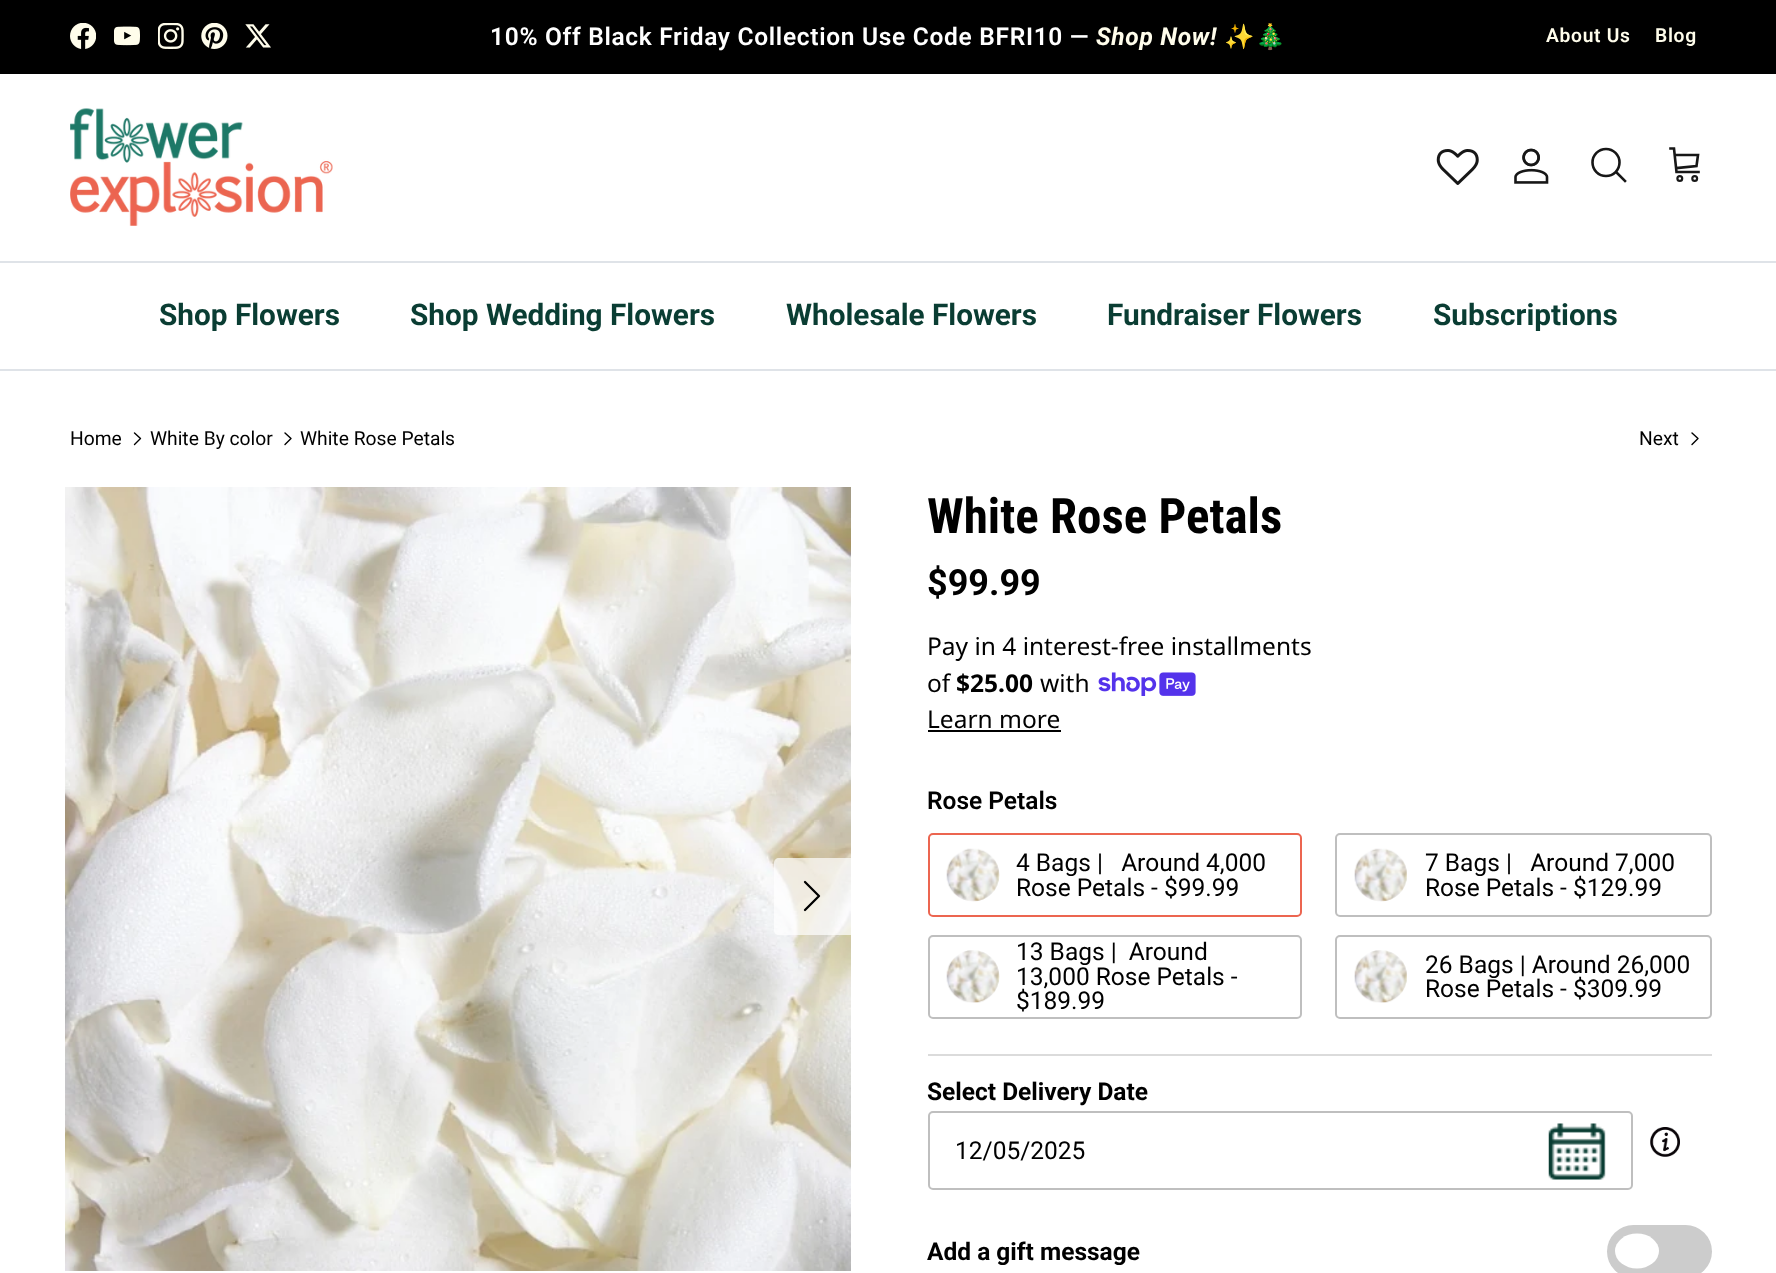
<svg xmlns="http://www.w3.org/2000/svg" width="1776" height="1273" viewBox="0 0 1776 1273">
  <rect width="100%" height="100%" fill="#ffffff"/>
  <rect x="0" y="0" width="1776" height="74" fill="#000000"/>
  <image x="70" y="23" width="26" height="26" href="img1.png"/>
  <image x="114" y="26" width="26" height="20" href="img2.png"/>
  <image x="158" y="23" width="26" height="26" href="img3.png"/>
  <image x="201" y="23" width="27" height="26" href="img4.png"/>
  <image x="245" y="24" width="26" height="24" href="img5.png"/>
  <text x="490" y="45" font-family="Roboto" font-size="24.5" font-weight="600" letter-spacing="0.7" fill="#ffffff">10% Off Black Friday Collection Use Code BFRI10 —</text>
  <text x="1096" y="45" font-family="Roboto" font-size="24.5" font-weight="bold" font-style="italic" letter-spacing="0.7" fill="#fffdeb">Shop Now!</text>
  <text x="1224" y="45" font-family="Noto Color Emoji" font-size="24.5" font-weight="bold" letter-spacing="0.7" fill="#ffffff">✨🎄</text>
  <text x="1546" y="42" font-family="Roboto" font-size="19.25" font-weight="600" letter-spacing="0.7" fill="#fffdeb">About Us</text>
  <text x="1655" y="42" font-family="Roboto" font-size="19.25" font-weight="600" letter-spacing="0.7" fill="#fffdeb">Blog</text>
  <rect x="0" y="261" width="1776" height="2" fill="#dfe3e8"/>
  <image x="70" y="108" width="263" height="118" href="img6.png"/>
  <image x="1436" y="149" width="43" height="36" href="img7.png"/>
  <image x="1514" y="148" width="35" height="36" href="img8.png"/>
  <circle cx="1606" cy="162.5" r="13.5" fill="none" stroke="#171717" stroke-width="2.6"/>
  <path d="M1617 173L1625 181" fill="none" stroke="#171717" stroke-width="2.6" stroke-linecap="square"/>
  <path d="M1670.5 148.5H1674L1676.5 172H1698.5M1675 155H1698L1696.5 166L1677.5 168" fill="none" stroke="#171717" stroke-width="2.6" stroke-linecap="square"/>
  <circle cx="1679.8" cy="178.5" r="2.4" fill="none" stroke="#171717" stroke-width="2.2"/>
  <circle cx="1694.7" cy="178.5" r="2.4" fill="none" stroke="#171717" stroke-width="2.2"/>
  <rect x="0" y="369" width="1776" height="2" fill="#dfe3e8"/>
  <text x="159" y="325" font-family="Roboto" font-size="29.75" font-weight="bold" fill="#0a3d33">Shop Flowers</text>
  <text x="410" y="325" font-family="Roboto" font-size="29.75" font-weight="bold" fill="#0a3d33">Shop Wedding Flowers</text>
  <text x="786" y="325" font-family="Roboto" font-size="29.75" font-weight="bold" fill="#0a3d33">Wholesale Flowers</text>
  <text x="1107" y="325" font-family="Roboto" font-size="29.75" font-weight="bold" fill="#0a3d33">Fundraiser Flowers</text>
  <text x="1433" y="325" font-family="Roboto" font-size="29.75" font-weight="bold" fill="#0a3d33">Subscriptions</text>
  <text x="70" y="445" font-family="Roboto" font-size="19.25" fill="#000000">Home</text>
  <path d="M134.5 444.5L140.5 438.5L134.5 433" fill="none" stroke="#000000" stroke-width="1.4" stroke-linecap="round" stroke-linejoin="round"/>
  <text x="150" y="445" font-family="Roboto" font-size="19.25" fill="#000000">White By color</text>
  <path d="M285 444.5L291 438.5L285 433" fill="none" stroke="#000000" stroke-width="1.4" stroke-linecap="round" stroke-linejoin="round"/>
  <text x="300" y="445" font-family="Roboto" font-size="19.25" fill="#000000">White Rose Petals</text>
  <text x="1639" y="445" font-family="Roboto" font-size="19.25" fill="#000000">Next</text>
  <path d="M1692 444.5L1698 438.5L1692 433" fill="none" stroke="#000000" stroke-width="1.4" stroke-linecap="round" stroke-linejoin="round"/>
  <image x="65" y="487" width="786" height="784" href="img9.png"/>
  <path d="M779 858H851V935H779C776 935 774 933 774 930V863C774 860 776 858 779 858Z" fill="#ffffff" fill-opacity="0.7"/>
  <path d="M805 910L819 896L805 882" fill="none" stroke="#000000" stroke-width="2.3" stroke-linecap="round" stroke-linejoin="round"/>
  <text x="927" y="533" font-family="Roboto Condensed" font-size="49" font-weight="bold" fill="#000000">White Rose Petals</text>
  <text x="927" y="595" font-family="Roboto" font-size="36" font-weight="bold" fill="#000000">$99.99</text>
  <text x="927" y="655" font-family="Noto Sans" font-size="24.5" fill="#000000">Pay in 4 interest-free installments</text>
  <text x="927" y="692" font-family="Noto Sans" font-size="24.5" fill="#000000">of</text>
  <text x="956" y="692" font-family="Noto Sans" font-size="24.5" font-weight="bold" fill="#000000">$25.00</text>
  <text x="1040" y="692" font-family="Noto Sans" font-size="24.5" fill="#000000">with</text>
  <image x="1098" y="672" width="98" height="24" href="img10.png"/>
  <text x="927" y="728" font-family="Noto Sans" font-size="24.5" fill="#000000">Learn more</text>
  <rect x="928" y="730" width="133" height="2" fill="#000000"/>
  <text x="927" y="809" font-family="Roboto" font-size="24.5" font-weight="600" fill="#000000">Rose Petals</text>
  <rect x="929" y="834" width="372" height="82" rx="4" fill="none" stroke="#ec6550" stroke-width="2"/>
  <image x="946" y="848" width="54" height="54" href="img11.png"/>
  <text x="1016" y="871" font-family="Roboto" font-size="24.5" fill="#000000" xml:space="preserve">4 Bags |   Around 4,000</text>
  <text x="1016" y="896" font-family="Roboto" font-size="24.5" fill="#000000">Rose Petals - $99.99</text>
  <rect x="1336" y="834" width="375" height="82" rx="4" fill="none" stroke="#bfbfbf" stroke-width="2"/>
  <image x="1354" y="848" width="53" height="54" href="img12.png"/>
  <text x="1425" y="871" font-family="Roboto" font-size="24.5" fill="#000000" xml:space="preserve">7 Bags |   Around 7,000</text>
  <text x="1425" y="896" font-family="Roboto" font-size="24.5" fill="#000000">Rose Petals - $129.99</text>
  <rect x="929" y="936" width="372" height="82" rx="4" fill="none" stroke="#bfbfbf" stroke-width="2"/>
  <image x="946" y="950" width="54" height="53" href="img13.png"/>
  <text x="1016" y="960" font-family="Roboto" font-size="24.5" fill="#000000" xml:space="preserve">13 Bags |  Around</text>
  <text x="1016" y="985" font-family="Roboto" font-size="24.5" fill="#000000">13,000 Rose Petals -</text>
  <text x="1016" y="1009" font-family="Roboto" font-size="24.5" fill="#000000">$189.99</text>
  <rect x="1336" y="936" width="375" height="82" rx="4" fill="none" stroke="#bfbfbf" stroke-width="2"/>
  <image x="1354" y="950" width="53" height="53" href="img14.png"/>
  <text x="1425" y="973" font-family="Roboto" font-size="24.5" fill="#000000">26 Bags | Around 26,000</text>
  <text x="1425" y="997" font-family="Roboto" font-size="24.5" fill="#000000">Rose Petals - $309.99</text>
  <rect x="928" y="1054" width="784" height="2" fill="#dbdbdb"/>
  <text x="927" y="1100" font-family="Roboto" font-size="24.5" font-weight="bold" fill="#000000">Select Delivery Date</text>
  <image x="1548" y="1123" width="58" height="57" href="img15.png"/>
  <rect x="929" y="1112" width="703" height="77" rx="4" fill="none" stroke="#bfbfbf" stroke-width="2"/>
  <text x="955" y="1159" font-family="Roboto" font-size="24.5" fill="#000000">12/05/2025</text>
  <image x="1650" y="1127" width="30" height="30" href="img16.png"/>
  <text x="927" y="1260" font-family="Roboto" font-size="24.5" font-weight="bold" fill="#000000">Add a gift message</text>
  <rect x="1607" y="1225" width="105" height="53" rx="26.5" fill="#cccccc"/>
  <ellipse cx="1637" cy="1251" rx="22" ry="17.5" fill="#ffffff"/>
</svg>
